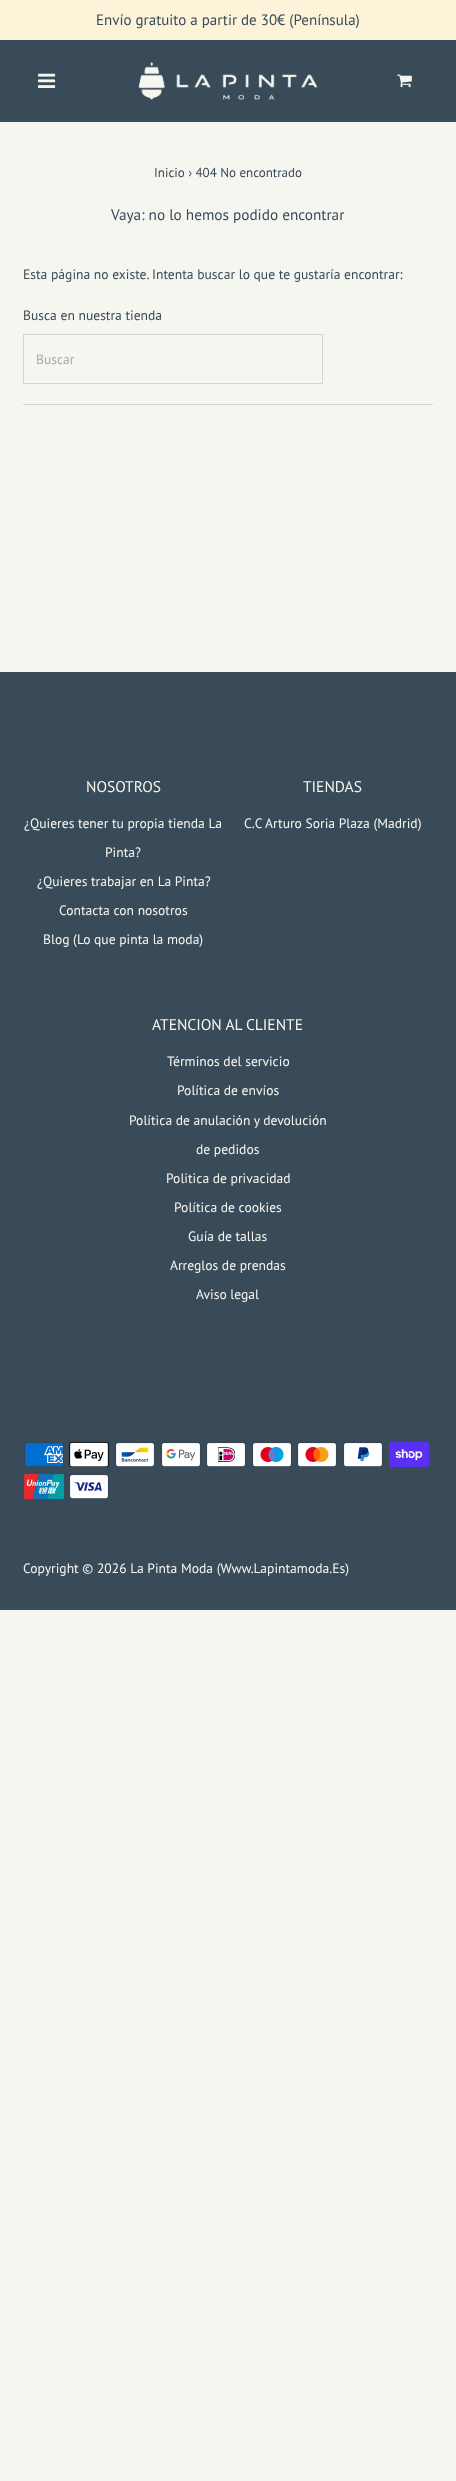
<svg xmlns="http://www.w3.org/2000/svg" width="456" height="2481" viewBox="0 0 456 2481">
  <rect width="100%" height="100%" fill="#f6f6f0"/>
  <rect x="0" y="0" width="456" height="40" fill="#fcf3d8"/>
  <text x="96" y="25" font-family="PT Sans" font-size="15" fill="#394a58">Envío gratuito a partir de 30€ (Península)</text>
  <rect x="0" y="40" width="456" height="82" fill="#394a58"/>
  <image x="38" y="73" width="18" height="15" href="img1.png"/>
  <image x="138" y="62" width="180" height="38" href="img2.png"/>
  <image x="397" y="74" width="15" height="14" href="img3.png"/>
  <text x="154" y="177" font-family="PT Sans" font-size="13" fill="#394a58">Inicio › 404 No encontrado</text>
  <text x="111" y="220" font-family="PT Sans" font-size="15.25" fill="#394a58">Vaya: no lo hemos podido encontrar</text>
  <text x="23" y="279" font-family="PT Sans" font-size="13.6" fill="#394a58">Esta página no existe. Intenta buscar lo que te gustaría encontrar:</text>
  <rect x="23" y="404" width="410" height="1" fill="#d5d5d5"/>
  <text x="23" y="320" font-family="PT Sans" font-size="13.6" fill="#394a58">Busca en nuestra tienda</text>
  <rect x="23.5" y="334.5" width="299" height="49" fill="none" stroke="#d5d5d5"/>
  <text x="36" y="364" font-family="PT Sans" font-size="13.6" fill="#aaaaaa">Buscar</text>
  <rect x="0" y="672" width="456" height="938" fill="#394a58"/>
  <text x="86" y="792" font-family="PT Sans" font-size="15.5" fill="#f6f6f0">NOSOTROS</text>
  <text x="24" y="828" font-family="PT Sans" font-size="13.6" fill="#f6f6f0">¿Quieres tener tu propia tienda La</text>
  <text x="105" y="857" font-family="PT Sans" font-size="13.6" fill="#f6f6f0">Pinta?</text>
  <text x="37" y="886" font-family="PT Sans" font-size="13.6" fill="#f6f6f0">¿Quieres trabajar en La Pinta?</text>
  <text x="59" y="915" font-family="PT Sans" font-size="13.6" fill="#f6f6f0">Contacta con nosotros</text>
  <text x="43" y="944" font-family="PT Sans" font-size="13.6" fill="#f6f6f0">Blog (Lo que pinta la moda)</text>
  <text x="303" y="792" font-family="PT Sans" font-size="15.5" fill="#f6f6f0">TIENDAS</text>
  <text x="244" y="828" font-family="PT Sans" font-size="13.6" fill="#f6f6f0">C.C Arturo Soria Plaza (Madrid)</text>
  <text x="152" y="1030" font-family="PT Sans" font-size="15.5" fill="#f6f6f0">ATENCION AL CLIENTE</text>
  <text x="167" y="1066" font-family="PT Sans" font-size="13.6" fill="#f6f6f0">Términos del servicio</text>
  <text x="177" y="1095" font-family="PT Sans" font-size="13.6" fill="#f6f6f0">Política de envíos</text>
  <text x="129" y="1125" font-family="PT Sans" font-size="13.6" fill="#f6f6f0">Política de anulación y devolución</text>
  <text x="196" y="1154" font-family="PT Sans" font-size="13.6" fill="#f6f6f0">de pedidos</text>
  <text x="166" y="1183" font-family="PT Sans" font-size="13.6" fill="#f6f6f0">Politica de privacidad</text>
  <text x="174" y="1212" font-family="PT Sans" font-size="13.6" fill="#f6f6f0">Política de cookies</text>
  <text x="188" y="1241" font-family="PT Sans" font-size="13.6" fill="#f6f6f0">Guía de tallas</text>
  <text x="170" y="1270" font-family="PT Sans" font-size="13.6" fill="#f6f6f0">Arreglos de prendas</text>
  <text x="196" y="1299" font-family="PT Sans" font-size="13.6" fill="#f6f6f0">Aviso legal</text>
  <image x="24" y="1442" width="40" height="25" href="img4.png"/>
  <image x="69" y="1442" width="40" height="25" href="img5.png"/>
  <image x="115" y="1442" width="40" height="25" href="img6.png"/>
  <image x="161" y="1442" width="40" height="25" href="img7.png"/>
  <image x="206" y="1442" width="40" height="25" href="img8.png"/>
  <image x="252" y="1442" width="40" height="25" href="img9.png"/>
  <image x="297" y="1442" width="40" height="25" href="img10.png"/>
  <image x="343" y="1442" width="40" height="25" href="img11.png"/>
  <image x="389" y="1442" width="40" height="25" href="img12.png"/>
  <image x="24" y="1474" width="40" height="25" href="img13.png"/>
  <image x="69" y="1474" width="40" height="25" href="img14.png"/>
  <text x="23" y="1573" font-family="PT Sans" font-size="13.6" fill="#f6f6f0">Copyright © 2026 La Pinta Moda (Www.Lapintamoda.Es)</text>
</svg>
